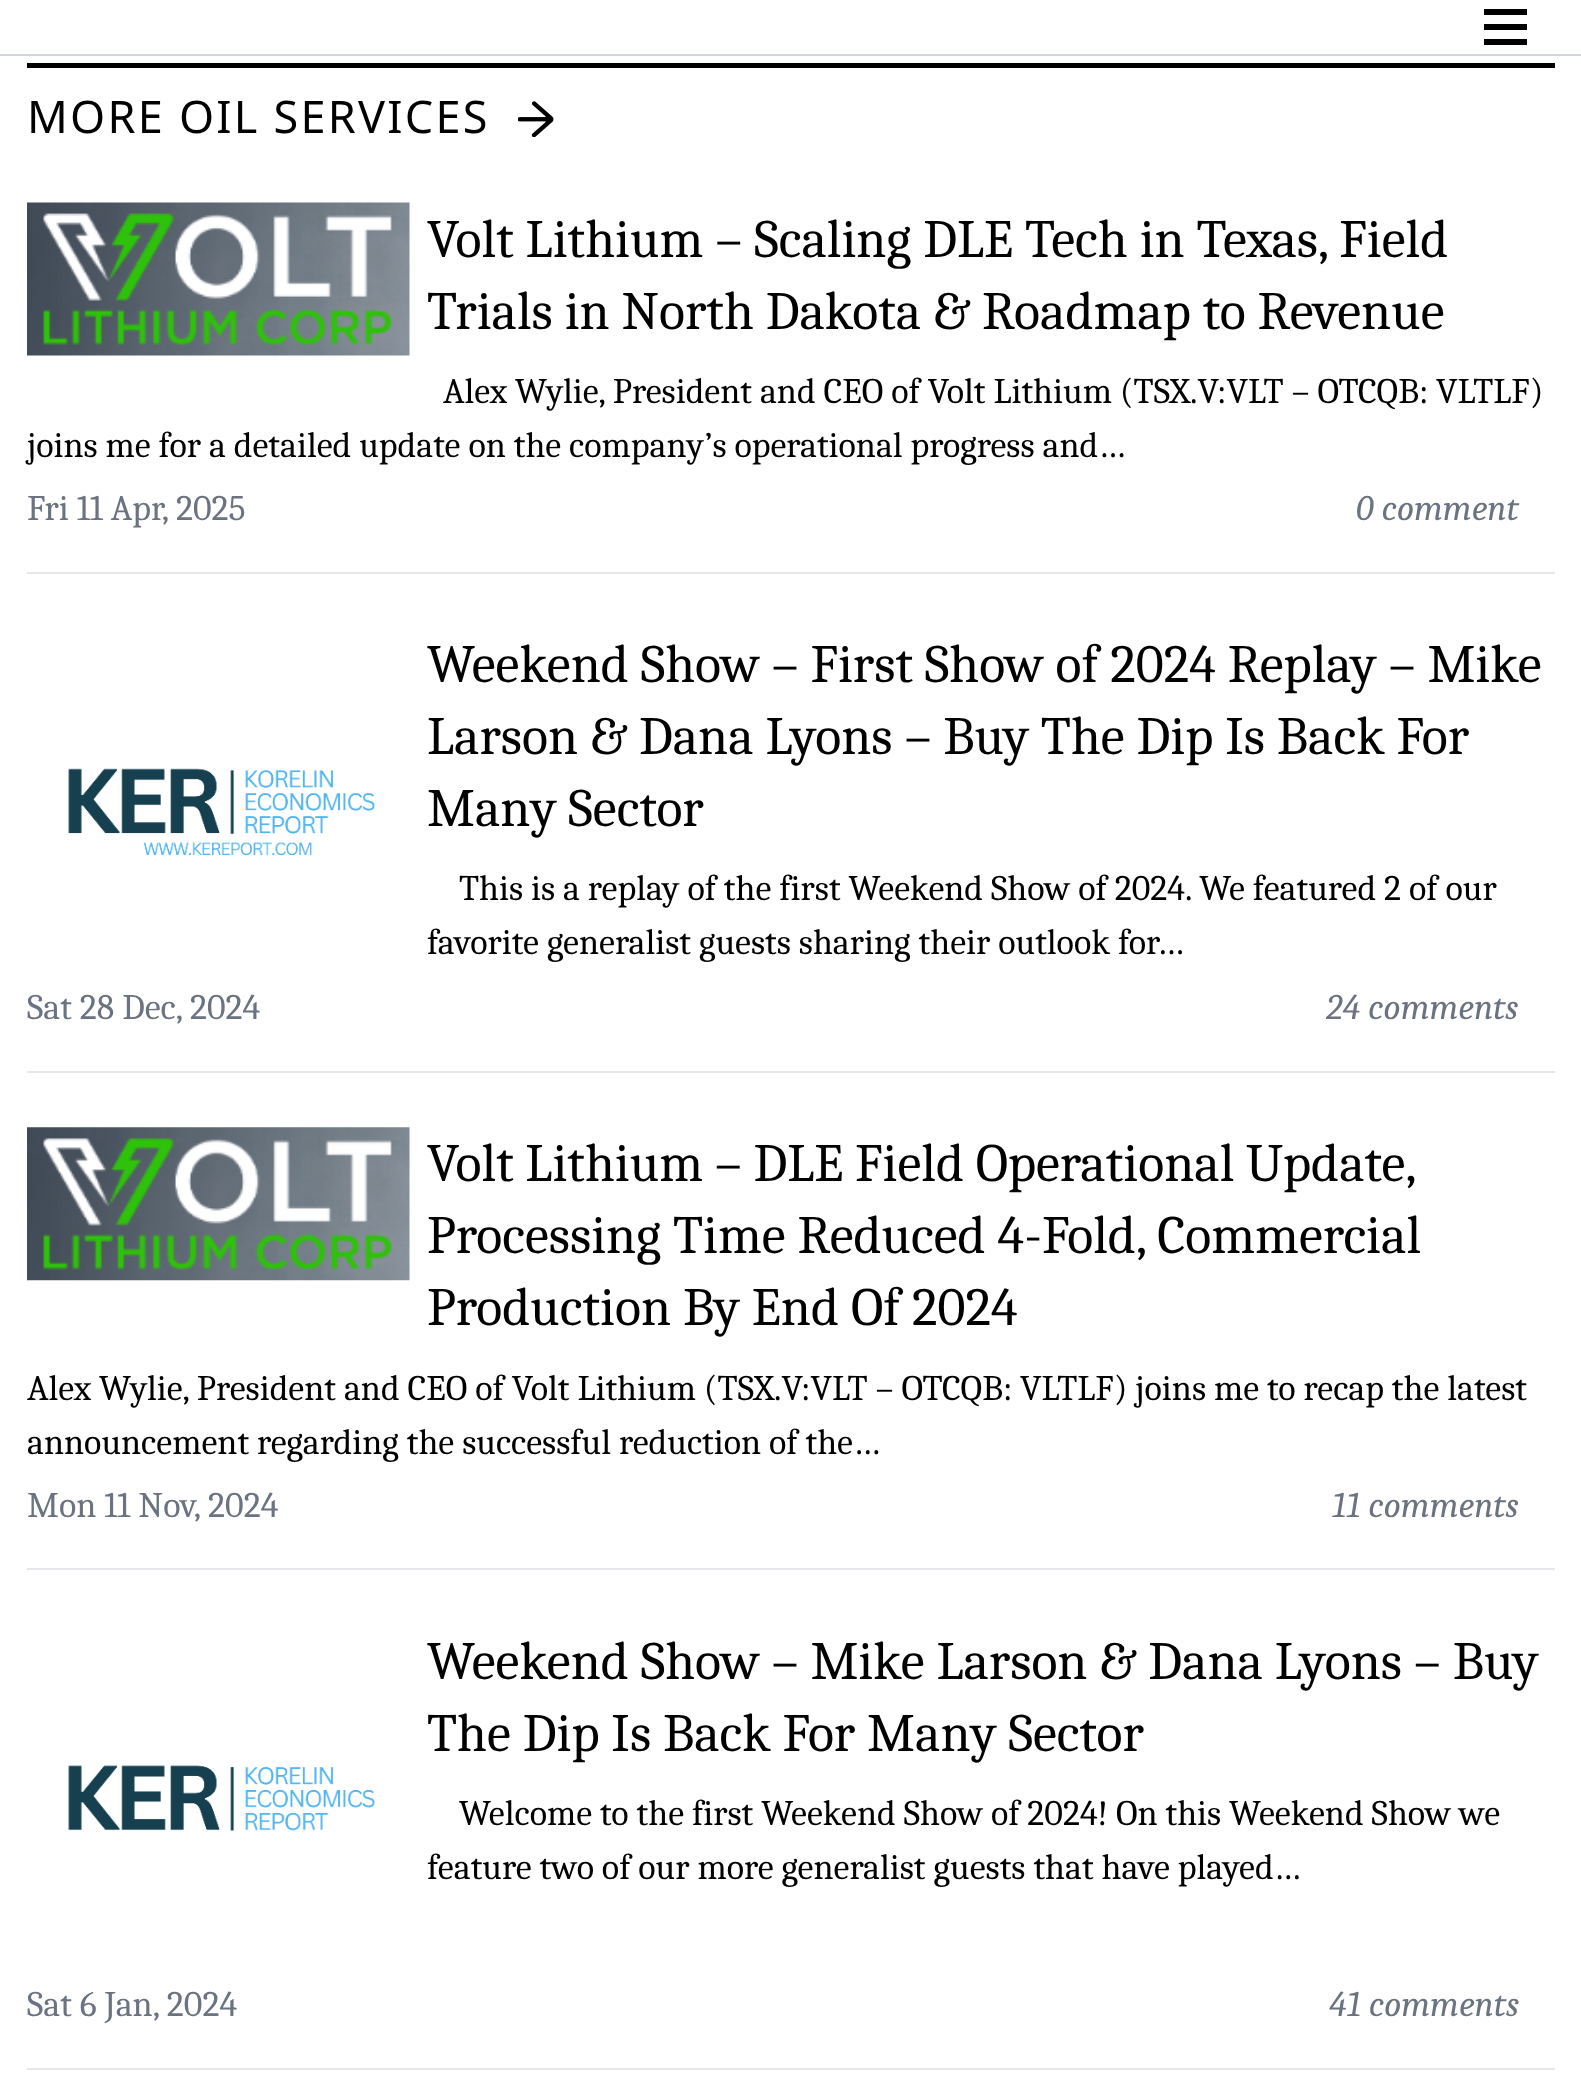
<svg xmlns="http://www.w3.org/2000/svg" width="1581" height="2075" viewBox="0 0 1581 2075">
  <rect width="100%" height="100%" fill="#ffffff"/>
  <rect x="0" y="54" width="1581" height="2" fill="#d1d5db"/>
  <path d="M1484 9H1527V15H1484ZM1484 24H1527V30H1484ZM1484 39H1527V45H1484Z" fill="#000000"/>
  <rect x="27" y="63" width="1528" height="5" fill="#000000"/>
  <text x="27" y="133" font-family="Noto Sans" font-size="45" letter-spacing="2.25" fill="#000000">MORE OIL SERVICES</text>
  <image x="518" y="101" width="36" height="36" href="img1.png"/>
  <rect x="27" y="572" width="1528" height="2" fill="#e5e7eb"/>
  <image x="27" y="202" width="383" height="154" href="img2.png"/>
  <text x="427" y="257" font-family="Caladea" font-size="54" fill="#000000">Volt Lithium – Scaling DLE Tech in Texas, Field</text>
  <text x="427" y="329" font-family="Caladea" font-size="54" fill="#000000">Trials in North Dakota &amp; Roadmap to Revenue</text>
  <text x="443" y="403" font-family="Caladea" font-size="36" fill="#000000">Alex Wylie, President and CEO of Volt Lithium (TSX.V:VLT – OTCQB: VLTLF)</text>
  <text x="27" y="457" font-family="Caladea" font-size="36" fill="#000000">joins me for a detailed update on the company’s operational progress and…</text>
  <text x="27" y="520" font-family="Caladea" font-size="36" fill="#6b7280">Fri 11 Apr, 2025</text>
  <text x="1356" y="520" font-family="Caladea" font-size="36" font-style="italic" fill="#6b7280">0 comment</text>
  <rect x="27" y="1071" width="1528" height="2" fill="#e5e7eb"/>
  <text x="427" y="682" font-family="Caladea" font-size="54" fill="#000000">Weekend Show – First Show of 2024 Replay – Mike</text>
  <text x="427" y="754" font-family="Caladea" font-size="54" fill="#000000">Larson &amp; Dana Lyons – Buy The Dip Is Back For</text>
  <text x="427" y="826" font-family="Caladea" font-size="54" fill="#000000">Many Sector</text>
  <text x="459" y="900" font-family="Caladea" font-size="36" fill="#000000">This is a replay of the first Weekend Show of 2024. We featured 2 of our</text>
  <text x="427" y="954" font-family="Caladea" font-size="36" fill="#000000">favorite generalist guests sharing their outlook for…</text>
  <text x="27" y="1019" font-family="Caladea" font-size="36" fill="#6b7280">Sat 28 Dec, 2024</text>
  <text x="1326" y="1019" font-family="Caladea" font-size="36" font-style="italic" fill="#6b7280">24 comments</text>
  <image x="68" y="768" width="308" height="88" href="img3.png"/>
  <rect x="27" y="1568" width="1528" height="2" fill="#e5e7eb"/>
  <image x="27" y="1127" width="383" height="154" href="img4.png"/>
  <text x="427" y="1181" word-spacing="-0.25" font-family="Caladea" font-size="54" fill="#000000">Volt Lithium – DLE Field Operational Update,</text>
  <text x="427" y="1253" font-family="Caladea" font-size="54" fill="#000000">Processing Time Reduced 4-Fold, Commercial</text>
  <text x="427" y="1325" font-family="Caladea" font-size="54" fill="#000000">Production By End Of 2024</text>
  <text x="27" y="1400" font-family="Caladea" font-size="36" fill="#000000">Alex Wylie, President and CEO of Volt Lithium (TSX.V:VLT – OTCQB: VLTLF) joins me to recap the latest</text>
  <text x="27" y="1454" font-family="Caladea" font-size="36" fill="#000000">announcement regarding the successful reduction of the…</text>
  <text x="27" y="1517" font-family="Caladea" font-size="36" fill="#6b7280">Mon 11 Nov, 2024</text>
  <text x="1332" y="1517" font-family="Caladea" font-size="36" font-style="italic" fill="#6b7280">11 comments</text>
  <rect x="27" y="2068" width="1528" height="2" fill="#e5e7eb"/>
  <text x="427" y="1679" font-family="Caladea" font-size="54" fill="#000000">Weekend Show – Mike Larson &amp; Dana Lyons – Buy</text>
  <text x="427" y="1751" font-family="Caladea" font-size="54" fill="#000000">The Dip Is Back For Many Sector</text>
  <text x="459" y="1825" font-family="Caladea" font-size="36" fill="#000000">Welcome to the first Weekend Show of 2024! On this Weekend Show we</text>
  <text x="427" y="1879" font-family="Caladea" font-size="36" fill="#000000">feature two of our more generalist guests that have played…</text>
  <text x="27" y="2016" font-family="Caladea" font-size="36" fill="#6b7280">Sat 6 Jan, 2024</text>
  <text x="1329" y="2016" font-family="Caladea" font-size="36" font-style="italic" fill="#6b7280">41 comments</text>
  <image x="68" y="1765" width="308" height="66" href="img5.png"/>
</svg>
